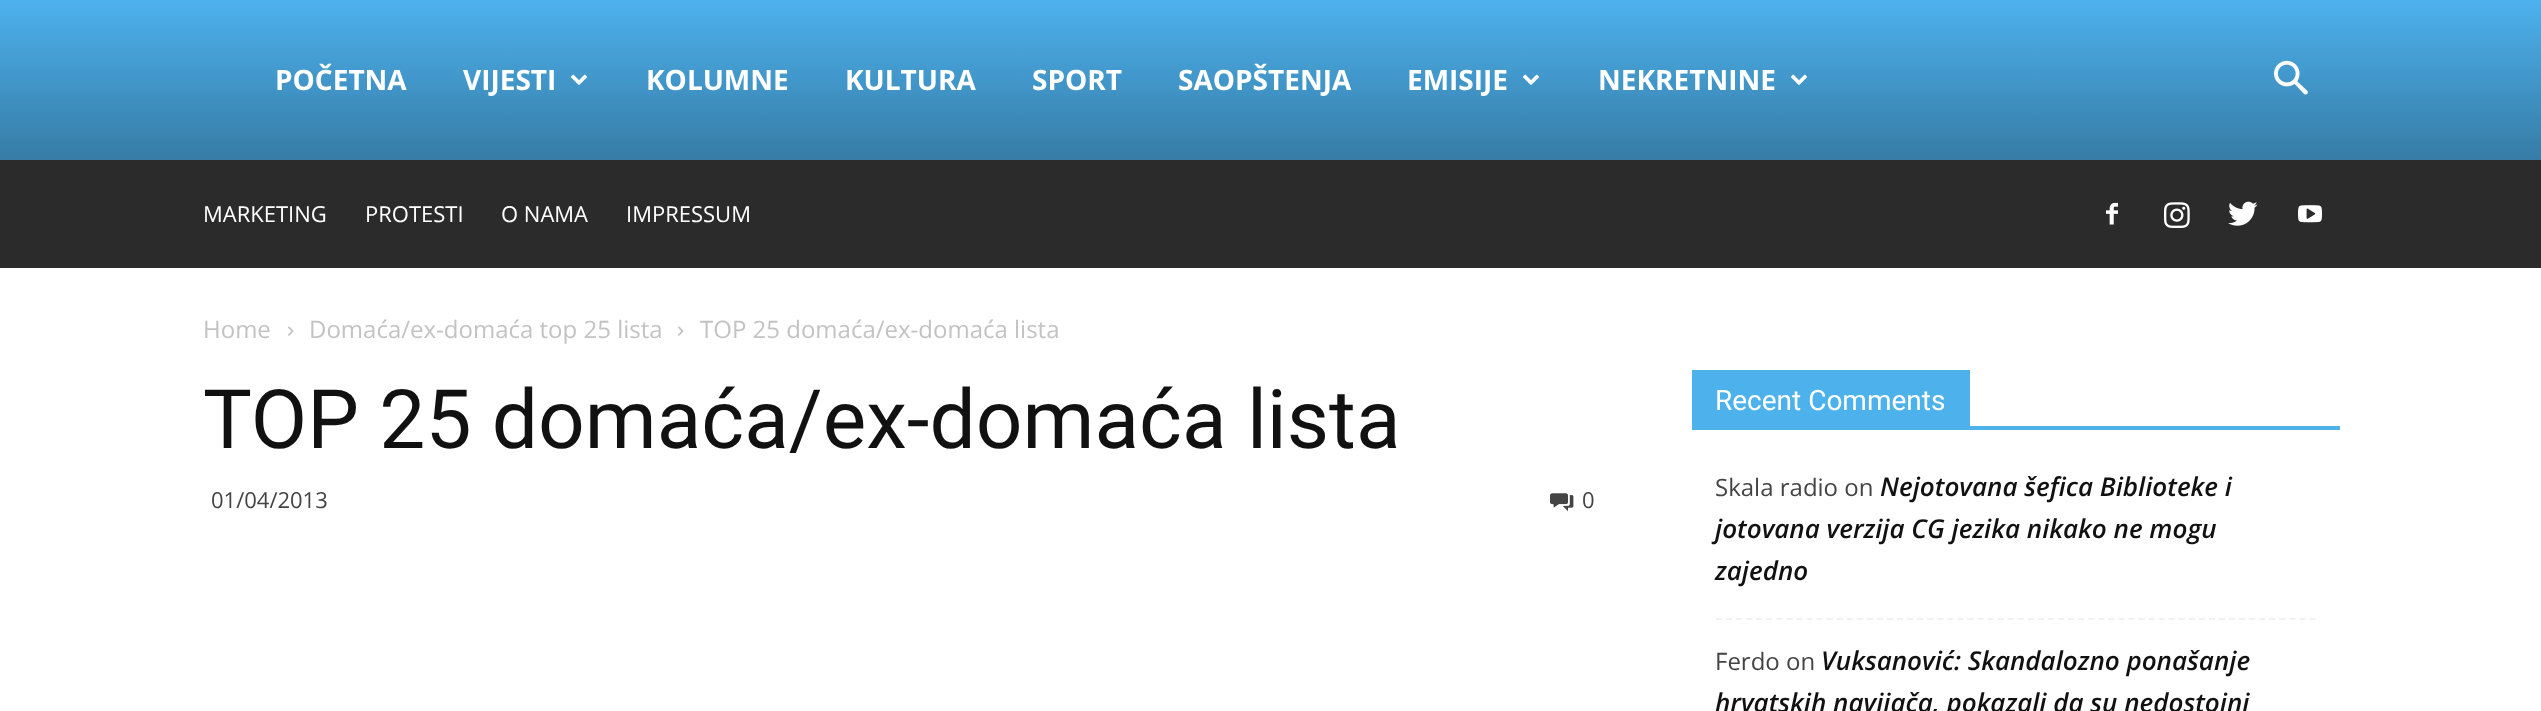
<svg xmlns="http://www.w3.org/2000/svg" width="2541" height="711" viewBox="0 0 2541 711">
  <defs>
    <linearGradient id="g1" gradientUnits="userSpaceOnUse" x1="1271" y1="0" x2="1271" y2="160"><stop offset="0" stop-color="#4db1ed"/><stop offset="1" stop-color="#367ca6"/></linearGradient>
  </defs>
  <rect width="100%" height="100%" fill="#ffffff"/>
  <rect x="0" y="0" width="2541" height="160" fill="url(#g1)"/>
  <text x="275" y="90" font-family="Open Sans" font-size="28" font-weight="bold" fill="#ffffff">POČETNA</text>
  <text x="463" y="90" font-family="Open Sans" font-size="28" font-weight="bold" fill="#ffffff">VIJESTI</text>
  <image x="571" y="74" width="16" height="11" href="img1.png"/>
  <text x="646" y="90" font-family="Open Sans" font-size="28" font-weight="bold" fill="#ffffff">KOLUMNE</text>
  <text x="845" y="90" font-family="Open Sans" font-size="28" font-weight="bold" fill="#ffffff">KULTURA</text>
  <text x="1032" y="90" font-family="Open Sans" font-size="28" font-weight="bold" fill="#ffffff">SPORT</text>
  <text x="1178" y="90" font-family="Open Sans" font-size="28" font-weight="bold" fill="#ffffff">SAOPŠTENJA</text>
  <text x="1407" y="90" font-family="Open Sans" font-size="28" font-weight="bold" fill="#ffffff">EMISIJE</text>
  <image x="1523" y="74" width="16" height="11" href="img1.png"/>
  <text x="1598" y="90" font-family="Open Sans" font-size="28" font-weight="bold" fill="#ffffff">NEKRETNINE</text>
  <image x="1791" y="74" width="16" height="11" href="img1.png"/>
  <image x="2274" y="60" width="34" height="35" href="img2.png"/>
  <rect x="0" y="160" width="2541" height="108" fill="#2b2b2b"/>
  <text x="203" y="222" font-family="Open Sans" font-size="22" fill="#ffffff">MARKETING</text>
  <text x="365" y="222" font-family="Open Sans" font-size="22" fill="#ffffff">PROTESTI</text>
  <text x="501" y="222" font-family="Open Sans" font-size="22" fill="#ffffff">O NAMA</text>
  <text x="626" y="222" font-family="Open Sans" font-size="22" fill="#ffffff">IMPRESSUM</text>
  <image x="2106" y="202" width="12" height="23" href="img3.png"/>
  <image x="2164" y="202" width="26" height="26" href="img4.png"/>
  <image x="2228" y="201" width="30" height="25" href="img5.png"/>
  <image x="2298" y="205" width="24" height="18" href="img6.png"/>
  <text x="203" y="338" font-family="Open Sans" font-size="24" fill="#c3c3c3">Home</text>
  <image x="288" y="326" width="6" height="10" href="img7.png"/>
  <text x="309" y="338" font-family="Open Sans" font-size="24" fill="#c3c3c3">Domaća/ex-domaća top 25 lista</text>
  <image x="678" y="326" width="6" height="10" href="img7.png"/>
  <text x="700" y="338" font-family="Open Sans" font-size="24" fill="#c3c3c3">TOP 25 domaća/ex-domaća lista</text>
  <text x="203" y="448" font-family="Roboto" font-size="82" fill="#111111">TOP 25 domaća/ex-domaća lista</text>
  <text x="211" y="508" font-family="Open Sans" font-size="22" fill="#444444">01/04/2013</text>
  <image x="1550" y="493" width="24" height="19" href="img8.png"/>
  <text x="1582" y="508" font-family="Open Sans" font-size="22" fill="#444444">0</text>
  <rect x="1692" y="426" width="648" height="4" fill="#4db2ec"/>
  <rect x="1692" y="370" width="278" height="56" fill="#4db2ec"/>
  <text x="1715" y="410" font-family="Roboto" font-size="28" fill="#ffffff">Recent Comments</text>
  <path d="M1716 619H2316" fill="none" stroke="#f1f1f1" stroke-width="2" stroke-dasharray="6 4.06"/>
  <text x="1715" y="496" font-family="Open Sans" font-size="24" fill="#444444">Skala radio on</text>
  <text x="1880" y="496" font-family="Open Sans" font-size="26" font-weight="600" font-style="italic" fill="#111111">Nejotovana šefica Biblioteke i</text>
  <text x="1715" y="538" font-family="Open Sans" font-size="26" font-weight="600" font-style="italic" fill="#111111">jotovana verzija CG jezika nikako ne mogu</text>
  <text x="1715" y="580" font-family="Open Sans" font-size="26" font-weight="600" font-style="italic" fill="#111111">zajedno</text>
  <text x="1715" y="670" font-family="Open Sans" font-size="24" fill="#444444">Ferdo on</text>
  <text x="1821" y="670" font-family="Open Sans" font-size="26" font-weight="600" font-style="italic" fill="#111111">Vuksanović: Skandalozno ponašanje</text>
  <text x="1715" y="712" font-family="Open Sans" font-size="26" font-weight="600" font-style="italic" fill="#111111">hrvatskih navijača, pokazali da su nedostojni</text>
</svg>
